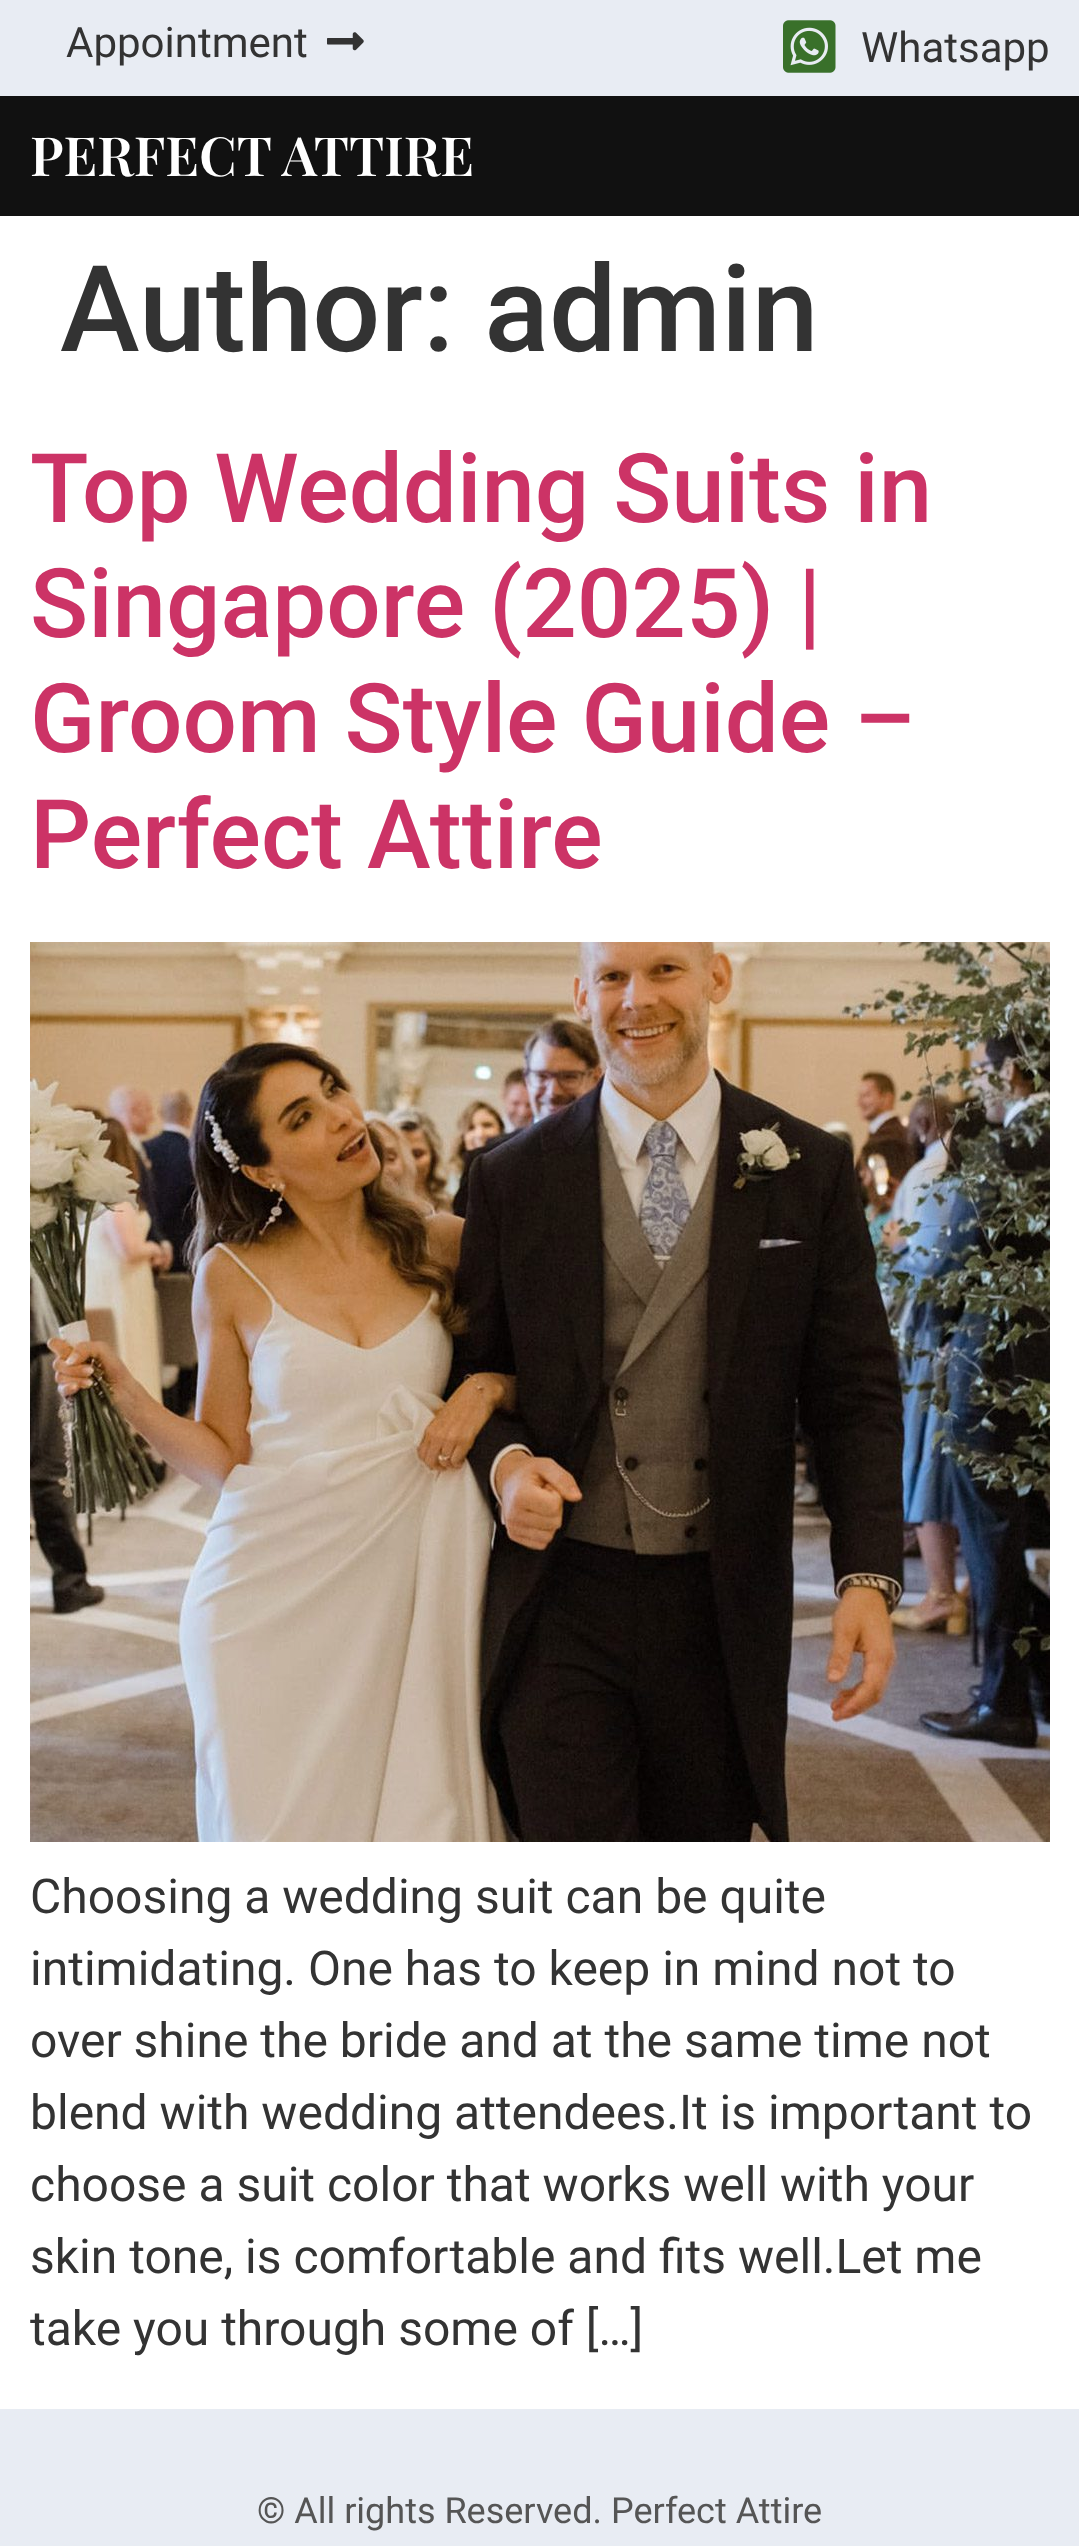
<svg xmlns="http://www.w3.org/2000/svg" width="1079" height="2546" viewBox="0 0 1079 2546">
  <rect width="100%" height="100%" fill="#ffffff"/>
  <rect x="0" y="0" width="1079" height="96" fill="#e8ecf3"/>
  <text x="66" y="57" font-family="Roboto" font-size="42" fill="#333333">Appointment</text>
  <image x="327" y="32" width="37" height="19" href="img1.png"/>
  <image x="783" y="20" width="53" height="53" href="img2.png"/>
  <text x="861" y="62" font-family="Roboto" font-size="42" fill="#333333">Whatsapp</text>
  <rect x="0" y="96" width="1079" height="120" fill="#111111"/>
  <text x="30" y="176" font-family="Playfair Display" font-size="54" font-weight="600" fill="#ffffff">PERFECT ATTIRE</text>
  <text x="60" y="351" font-family="Roboto" font-size="120" font-weight="500" fill="#333333">Author: admin</text>
  <text x="30" y="522" font-family="Roboto" font-size="96" font-weight="500" fill="#cc3366">Top Wedding Suits in</text>
  <text x="30" y="637" font-family="Roboto" font-size="96" font-weight="500" fill="#cc3366">Singapore (2025) |</text>
  <text x="30" y="752" font-family="Roboto" font-size="96" font-weight="500" fill="#cc3366">Groom Style Guide –</text>
  <text x="30" y="868" font-family="Roboto" font-size="96" font-weight="500" fill="#cc3366">Perfect Attire</text>
  <image x="30" y="942" width="1020" height="900" href="img3.png"/>
  <text x="30" y="1913" font-family="Roboto" font-size="48" fill="#333333">Choosing a wedding suit can be quite</text>
  <text x="30" y="1985" font-family="Roboto" font-size="48" fill="#333333">intimidating. One has to keep in mind not to</text>
  <text x="30" y="2057" font-family="Roboto" font-size="48" fill="#333333">over shine the bride and at the same time not</text>
  <text x="30" y="2129" font-family="Roboto" font-size="48" fill="#333333">blend with wedding attendees.It is important to</text>
  <text x="30" y="2201" font-family="Roboto" font-size="48" fill="#333333">choose a suit color that works well with your</text>
  <text x="30" y="2273" font-family="Roboto" font-size="48" fill="#333333">skin tone, is comfortable and fits well.Let me</text>
  <text x="30" y="2345" font-family="Roboto" font-size="48" fill="#333333">take you through some of […]</text>
  <rect x="0" y="2409" width="1079" height="137" fill="#e8ecf3"/>
  <text x="257" y="2523" font-family="Roboto" font-size="36" fill="#555555">© All rights Reserved. Perfect Attire</text>
</svg>
